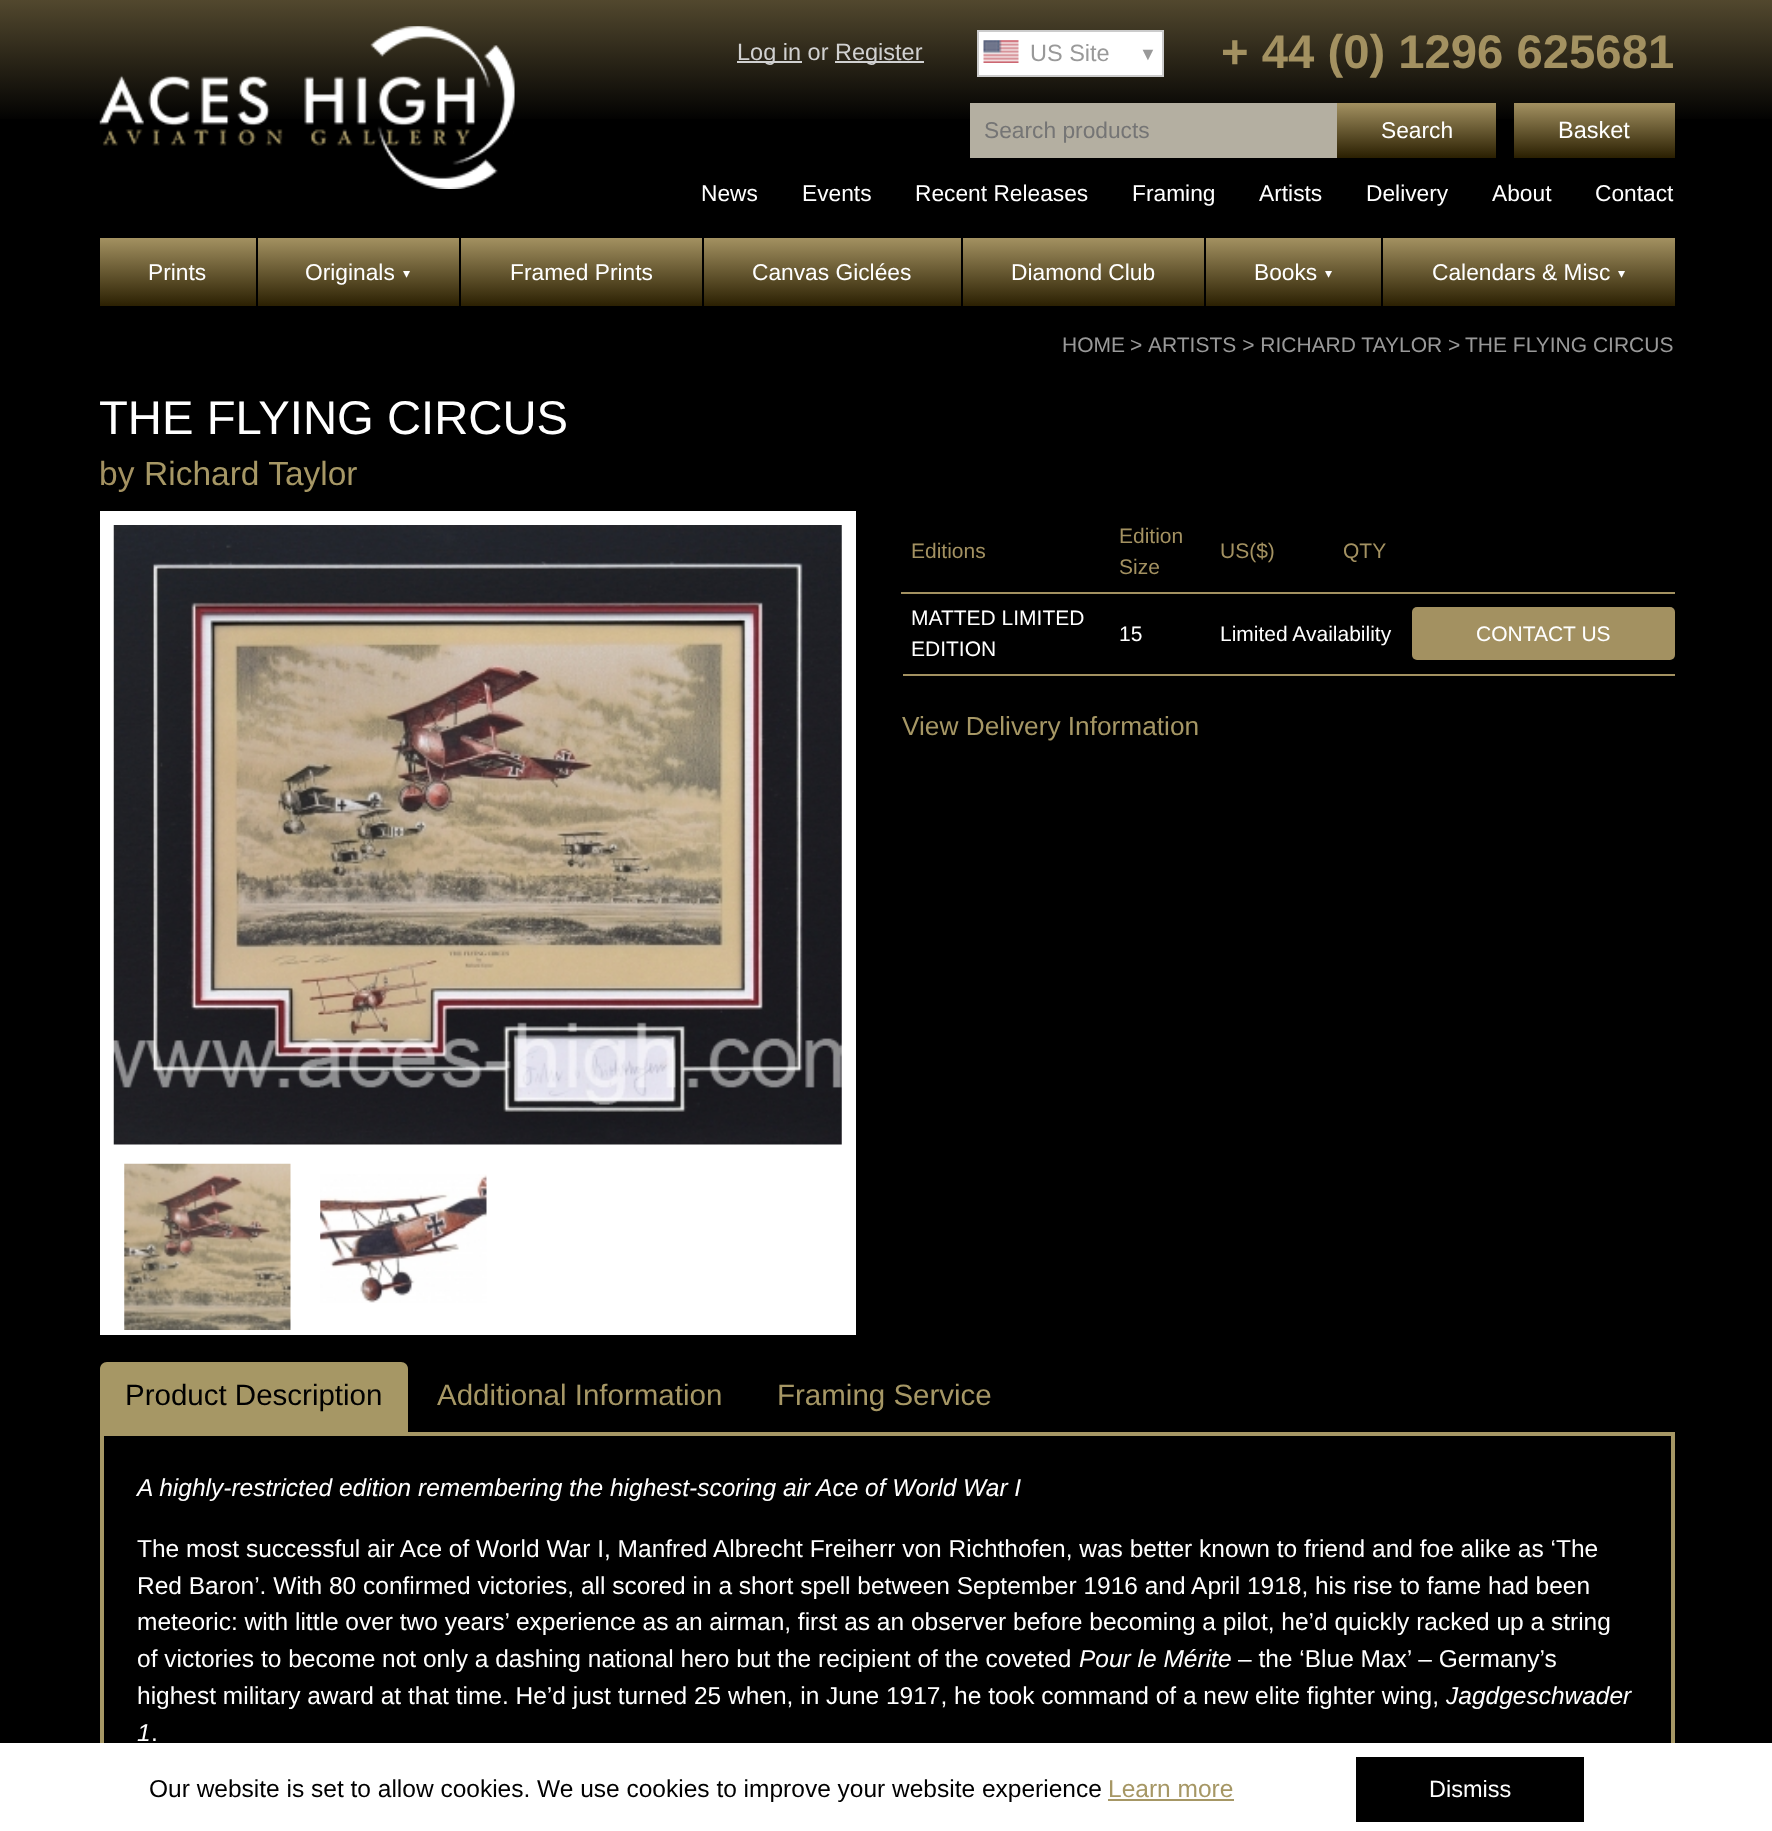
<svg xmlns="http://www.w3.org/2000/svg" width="1772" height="1831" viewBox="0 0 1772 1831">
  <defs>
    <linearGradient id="g1" gradientUnits="userSpaceOnUse" x1="886" y1="0" x2="886" y2="123"><stop offset="0" stop-color="#52482e"/><stop offset="1" stop-color="#000000"/></linearGradient>
    <linearGradient id="g2" gradientUnits="userSpaceOnUse" x1="1417" y1="103" x2="1417" y2="158"><stop offset="0" stop-color="#a39161"/><stop offset="0.99" stop-color="#2b2002"/></linearGradient>
    <linearGradient id="g3" gradientUnits="userSpaceOnUse" x1="1594" y1="103" x2="1594" y2="158"><stop offset="0" stop-color="#a39161"/><stop offset="0.99" stop-color="#2b2002"/></linearGradient>
    <linearGradient id="g4" gradientUnits="userSpaceOnUse" x1="887" y1="238" x2="887" y2="306"><stop offset="0" stop-color="#a39161"/><stop offset="1" stop-color="#2b2002"/></linearGradient>
  </defs>
  <rect width="100%" height="100%" fill="#000000"/>
  <rect x="0" y="0" width="1772" height="119" fill="url(#g1)"/>
  <image x="99" y="26" width="416" height="163" href="img1.png"/>
  <rect x="737" y="61" width="65" height="2" fill="#d1d1d1"/>
  <text x="737" y="60" font-family="Liberation Sans" font-size="23.5" fill="#d1d1d1">Log in or</text>
  <rect x="835" y="61" width="89" height="2" fill="#d1d1d1"/>
  <text x="835" y="60" font-family="Liberation Sans" font-size="23.5" fill="#d1d1d1">Register</text>
  <rect x="978" y="31" width="185" height="45" fill="#ffffff" stroke="#cccccc" stroke-width="2"/>
  <image x="983" y="40" width="36" height="23" href="img2.png"/>
  <text x="1030" y="61" font-family="Liberation Sans" font-size="23.5" fill="#999999">US Site</text>
  <text x="1139" y="60" font-family="Liberation Sans" font-size="18" fill="#999999">▼</text>
  <text x="1221" y="68" font-family="Liberation Sans" font-size="47.25" font-weight="bold" fill="#a39161">+ 44 (0) 1296 625681</text>
  <rect x="970" y="103" width="367" height="55" fill="#b4afa1"/>
  <text x="984" y="138" font-family="Liberation Sans" font-size="22.75" fill="#757575">Search products</text>
  <rect x="1337" y="103" width="159" height="55" fill="url(#g2)"/>
  <text x="1381" y="138" font-family="Liberation Sans" font-size="22.75" fill="#ffffff">Search</text>
  <rect x="1514" y="103" width="161" height="55" fill="url(#g3)"/>
  <text x="1558" y="138" font-family="Liberation Sans" font-size="23.5" fill="#ffffff">Basket</text>
  <text x="701" y="201" font-family="Liberation Sans" font-size="22.75" fill="#ffffff">News</text>
  <text x="802" y="201" font-family="Liberation Sans" font-size="22.75" fill="#ffffff">Events</text>
  <text x="915" y="201" font-family="Liberation Sans" font-size="22.75" fill="#ffffff">Recent Releases</text>
  <text x="1132" y="201" font-family="Liberation Sans" font-size="22.75" fill="#ffffff">Framing</text>
  <text x="1259" y="201" font-family="Liberation Sans" font-size="22.75" fill="#ffffff">Artists</text>
  <text x="1366" y="201" font-family="Liberation Sans" font-size="22.75" fill="#ffffff">Delivery</text>
  <text x="1492" y="201" font-family="Liberation Sans" font-size="22.75" fill="#ffffff">About</text>
  <text x="1595" y="201" font-family="Liberation Sans" font-size="22.75" fill="#ffffff">Contact</text>
  <rect x="100" y="238" width="1575" height="68" fill="url(#g4)"/>
  <text x="148" y="280" font-family="Liberation Sans" font-size="22.75" fill="#ffffff">Prints</text>
  <rect x="256" y="238" width="2" height="68" fill="#000000"/>
  <text x="305" y="280" font-family="Liberation Sans" font-size="22.75" fill="#ffffff">Originals</text>
  <text x="403" y="278" font-family="DejaVu Sans" font-size="14" fill="#ffffff">▾</text>
  <rect x="459" y="238" width="2" height="68" fill="#000000"/>
  <text x="510" y="280" font-family="Liberation Sans" font-size="22.75" fill="#ffffff">Framed Prints</text>
  <rect x="702" y="238" width="2" height="68" fill="#000000"/>
  <text x="752" y="280" font-family="Liberation Sans" font-size="22.75" fill="#ffffff">Canvas Giclées</text>
  <rect x="961" y="238" width="2" height="68" fill="#000000"/>
  <text x="1011" y="280" font-family="Liberation Sans" font-size="22.75" fill="#ffffff">Diamond Club</text>
  <rect x="1204" y="238" width="2" height="68" fill="#000000"/>
  <text x="1254" y="280" font-family="Liberation Sans" font-size="22.75" fill="#ffffff">Books</text>
  <text x="1325" y="278" font-family="DejaVu Sans" font-size="14" fill="#ffffff">▾</text>
  <rect x="1381" y="238" width="2" height="68" fill="#000000"/>
  <text x="1432" y="280" font-family="Liberation Sans" font-size="22.75" fill="#ffffff">Calendars &amp; Misc</text>
  <text x="1618" y="278" font-family="DejaVu Sans" font-size="14" fill="#ffffff">▾</text>
  <text x="1062" y="352" font-family="Liberation Sans" font-size="21" fill="#999999">HOME</text>
  <text x="1130" y="352" font-family="Liberation Sans" font-size="21" fill="#999999">&gt;</text>
  <text x="1148" y="352" font-family="Liberation Sans" font-size="21" fill="#999999">ARTISTS &gt; RICHARD TAYLOR &gt;</text>
  <text x="1465" y="352" font-family="Liberation Sans" font-size="21" fill="#999999">THE FLYING CIRCUS</text>
  <text x="99" y="434" font-family="Liberation Sans" font-size="47.25" fill="#ffffff">THE FLYING CIRCUS</text>
  <text x="99" y="485" font-family="Liberation Sans" font-size="33.5" fill="#a39161">by</text>
  <text x="144" y="485" font-family="Liberation Sans" font-size="33.5" fill="#a69765">Richard Taylor</text>
  <rect x="100" y="511" width="756" height="824" fill="#ffffff"/>
  <image x="113" y="525" width="729" height="620" href="img3.png"/>
  <image x="124" y="1163" width="167" height="167" href="img4.png"/>
  <image x="320" y="1174" width="167" height="129" href="img5.png"/>
  <rect x="903" y="674" width="772" height="2" fill="#a39161"/>
  <text x="911" y="558" font-family="Liberation Sans" font-size="21" fill="#a39161">Editions</text>
  <text x="1119" y="543" font-family="Liberation Sans" font-size="21" fill="#a39161">Edition</text>
  <text x="1119" y="574" font-family="Liberation Sans" font-size="21" fill="#a39161">Size</text>
  <text x="1220" y="558" font-family="Liberation Sans" font-size="21" fill="#a39161">US($)</text>
  <text x="1343" y="558" font-family="Liberation Sans" font-size="21" fill="#a39161">QTY</text>
  <rect x="901" y="592" width="774" height="2" fill="#a39161"/>
  <text x="911" y="625" font-family="Liberation Sans" font-size="21" fill="#ffffff">MATTED LIMITED</text>
  <text x="911" y="656" font-family="Liberation Sans" font-size="21" fill="#ffffff">EDITION</text>
  <text x="1119" y="641" font-family="Liberation Sans" font-size="21" fill="#ffffff">15</text>
  <text x="1220" y="641" font-family="Liberation Sans" font-size="21" fill="#ffffff">Limited Availability</text>
  <rect x="1412" y="607" width="263" height="53" rx="5" fill="#a39161"/>
  <text x="1476" y="641" font-family="Liberation Sans" font-size="21" fill="#ffffff">CONTACT US</text>
  <text x="902" y="735" font-family="Liberation Sans" font-size="26.25" fill="#a69765">View Delivery Information</text>
  <path d="M107 1362H401C405 1362 408 1365 408 1369V1432H100V1369C100 1365 103 1362 107 1362Z" fill="#a69765"/>
  <text x="125" y="1405" font-family="Liberation Sans" font-size="29.5" fill="#000000">Product Description</text>
  <text x="437" y="1405" font-family="Liberation Sans" font-size="29.5" fill="#a69765">Additional Information</text>
  <text x="777" y="1405" font-family="Liberation Sans" font-size="29.5" fill="#a69765">Framing Service</text>
  <rect x="102" y="1434" width="1571" height="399" fill="none" stroke="#a69765" stroke-width="4"/>
  <text x="137" y="1496" font-family="Liberation Sans" font-size="24.5" font-style="italic" fill="#ffffff">A highly-restricted edition remembering the highest-scoring air Ace of World War I</text>
  <text x="137" y="1557" font-family="Liberation Sans" font-size="24.5" fill="#ffffff">The most successful air Ace of World War I, Manfred Albrecht Freiherr von Richthofen, was better known to friend and foe alike as ‘The</text>
  <text x="137" y="1594" font-family="Liberation Sans" font-size="24.5" fill="#ffffff">Red Baron’. With 80 confirmed victories, all scored in a short spell between September 1916 and April 1918, his rise to fame had been</text>
  <text x="137" y="1630" font-family="Liberation Sans" font-size="24.5" fill="#ffffff">meteoric: with little over two years’ experience as an airman, first as an observer before becoming a pilot, he’d quickly racked up a string</text>
  <text x="137" y="1667" font-family="Liberation Sans" font-size="24.5" fill="#ffffff">of victories to become not only a dashing national hero but the recipient of the coveted</text>
  <text x="1079" y="1667" font-family="Liberation Sans" font-size="24.5" font-style="italic" fill="#ffffff">Pour le Mérite</text>
  <text x="1238" y="1667" font-family="Liberation Sans" font-size="24.5" fill="#ffffff">– the ‘Blue Max’ – Germany’s</text>
  <text x="137" y="1704" font-family="Liberation Sans" font-size="24.5" fill="#ffffff">highest military award at that time. He’d just turned 25 when, in June 1917, he took command of a new elite fighter wing,</text>
  <text x="1446" y="1704" font-family="Liberation Sans" font-size="24.5" font-style="italic" fill="#ffffff">Jagdgeschwader</text>
  <text x="137" y="1741" font-family="Liberation Sans" font-size="24.5" font-style="italic" fill="#ffffff">1</text>
  <text x="151" y="1741" font-family="Liberation Sans" font-size="24.5" fill="#ffffff">.</text>
  <rect x="0" y="1743" width="1772" height="88" fill="#ffffff"/>
  <text x="149" y="1797" font-family="Liberation Sans" font-size="24.5" fill="#000000">Our website is set to allow cookies. We use cookies to improve your website experience</text>
  <text x="1108" y="1797" font-family="Liberation Sans" font-size="24.5" fill="#a69765">Learn more</text>
  <rect x="1108" y="1799" width="126" height="2" fill="#a69765"/>
  <rect x="1356" y="1757" width="228" height="65" fill="#000000"/>
  <text x="1429" y="1797" font-family="Liberation Sans" font-size="23.5" fill="#ffffff">Dismiss</text>
</svg>
